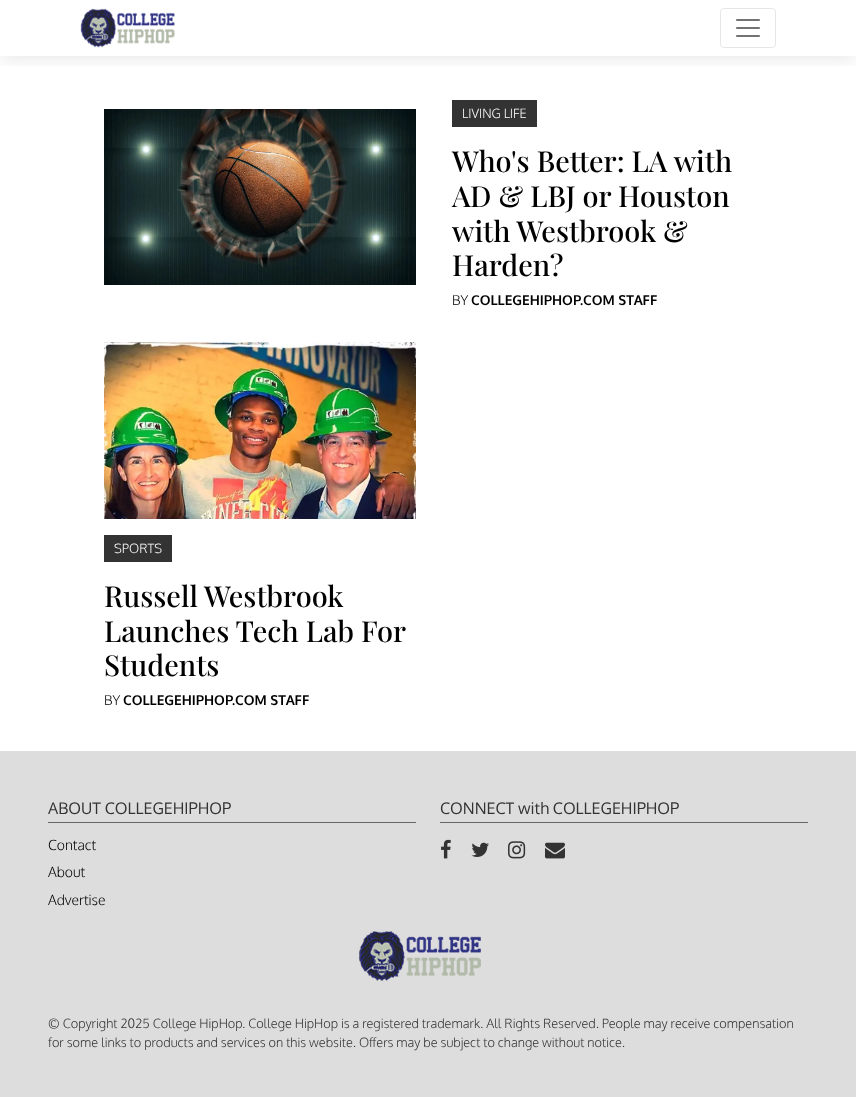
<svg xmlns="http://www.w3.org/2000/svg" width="856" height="1097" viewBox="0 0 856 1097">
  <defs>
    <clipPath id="clip1"><rect x="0" y="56" width="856" height="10"/></clipPath>
    <filter id="blur1" x="-50%" y="-200%" width="200%" height="500%"><feGaussianBlur stdDeviation="10"/></filter>
  </defs>
  <rect width="100%" height="100%" fill="#ffffff"/>
  <g clip-path="url(#clip1)">
    <rect x="0" y="2" width="856" height="56" fill="#000000" fill-opacity="0.1" filter="url(#blur1)"/>
  </g>
  <image x="80" y="8" width="95" height="40" href="img1.png"/>
  <rect x="720.5" y="8.5" width="55" height="39" rx="3.5" fill="none" stroke="#e6e6e6"/>
  <image x="736" y="19" width="24" height="18" href="img2.png"/>
  <image x="104" y="109" width="312" height="176" href="img3.png"/>
  <rect x="452" y="100" width="85" height="27" fill="#333333"/>
  <text x="462" y="118" font-family="Oxygen" font-size="12.8" font-weight="300" fill="#ffffff">LIVING LIFE</text>
  <text x="452" y="172" font-family="Playfair Display" font-size="28.9" font-weight="500" fill="#000000">Who's Better: LA with</text>
  <text x="452" y="207" font-family="Playfair Display" font-size="28.9" font-weight="500" fill="#000000">AD &amp; LBJ or Houston</text>
  <text x="452" y="242" font-family="Playfair Display" font-size="28.9" font-weight="500" fill="#000000">with Westbrook &amp;</text>
  <text x="452" y="276" font-family="Playfair Display" font-size="28.9" font-weight="500" fill="#000000">Harden?</text>
  <text x="452" y="305" font-family="Oxygen" font-size="13.6" font-weight="300" fill="#000000">BY</text>
  <text x="471" y="305" font-family="Oxygen" font-size="13.6" font-weight="bold" fill="#000000">COLLEGEHIPHOP.COM STAFF</text>
  <image x="104" y="342" width="312" height="177" href="img4.png"/>
  <rect x="104" y="535" width="68" height="27" fill="#333333"/>
  <text x="114" y="553" font-family="Oxygen" font-size="12.8" font-weight="300" fill="#ffffff">SPORTS</text>
  <text x="104" y="607" font-family="Playfair Display" font-size="28.9" font-weight="500" fill="#000000">Russell Westbrook</text>
  <text x="104" y="642" font-family="Playfair Display" font-size="28.9" font-weight="500" fill="#000000">Launches Tech Lab For</text>
  <text x="104" y="676" font-family="Playfair Display" font-size="28.9" font-weight="500" fill="#000000">Students</text>
  <text x="104" y="705" font-family="Oxygen" font-size="13.6" font-weight="300" fill="#000000">BY</text>
  <text x="123" y="705" font-family="Oxygen" font-size="13.6" font-weight="bold" fill="#000000">COLLEGEHIPHOP.COM STAFF</text>
  <rect x="0" y="751" width="856" height="346" fill="#dddddd"/>
  <text x="48" y="814" font-family="Oxygen" font-size="16" fill="#333333">ABOUT COLLEGEHIPHOP</text>
  <rect x="48" y="822" width="368" height="1" fill="#666666"/>
  <text x="48" y="850" font-family="Oxygen" font-size="14" font-weight="300" fill="#000000">Contact</text>
  <text x="48" y="877" font-family="Oxygen" font-size="14" font-weight="300" fill="#000000">About</text>
  <text x="48" y="905" font-family="Oxygen" font-size="14" font-weight="300" fill="#000000">Advertise</text>
  <text x="440" y="814" font-family="Oxygen" font-size="16" fill="#333333">CONNECT with COLLEGEHIPHOP</text>
  <rect x="440" y="822" width="368" height="1" fill="#666666"/>
  <image x="441" y="839" width="10" height="20" href="img5.png"/>
  <image x="471" y="842" width="18" height="15" href="img6.png"/>
  <image x="508" y="841" width="18" height="18" href="img7.png"/>
  <image x="545" y="842" width="20" height="17" href="img8.png"/>
  <image x="359" y="931" width="122" height="50" href="img9.png"/>
  <text x="48" y="1028" font-family="Oxygen" font-size="12.8" font-weight="300" fill="#333333">© Copyright 2025 College HipHop. College HipHop is a registered trademark. All Rights Reserved. People may receive compensation</text>
  <text x="48" y="1047" font-family="Oxygen" font-size="12.8" font-weight="300" fill="#333333">for some links to products and services on this website. Offers may be subject to change without notice.</text>
</svg>
